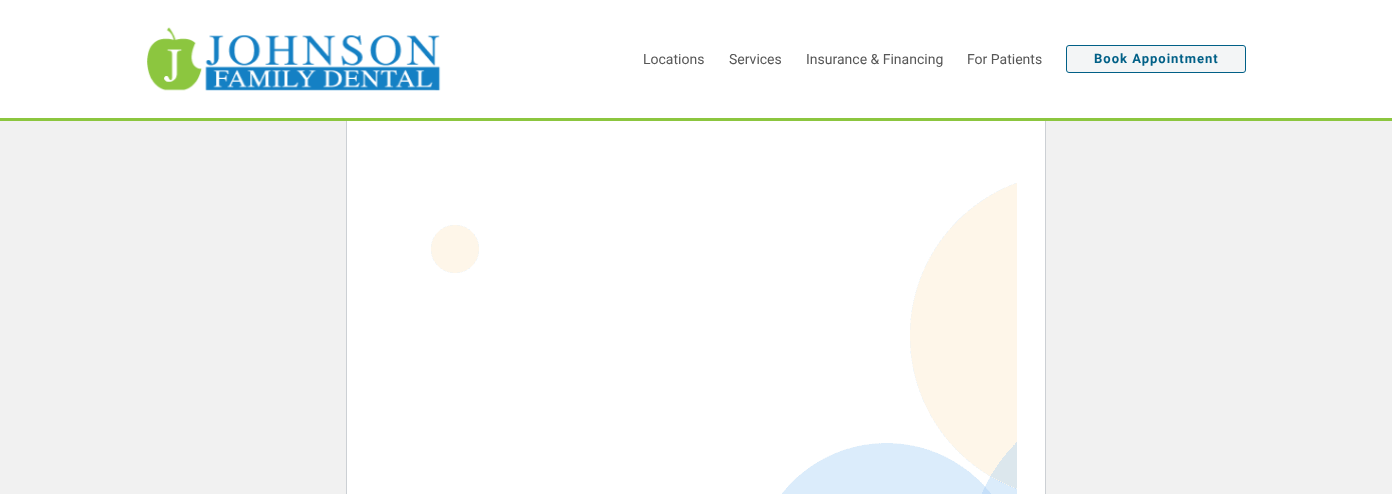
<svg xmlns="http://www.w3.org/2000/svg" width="1392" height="494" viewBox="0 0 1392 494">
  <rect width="100%" height="100%" fill="#f1f1f1"/>
  <rect x="347" y="121" width="698" height="373" fill="#ffffff"/>
  <rect x="346.5" y="50.5" width="699" height="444" fill="none" stroke="#ccd0d4"/>
  <rect x="0" y="0" width="1392" height="118" fill="#ffffff"/>
  <rect x="0" y="118" width="1392" height="3" fill="#8cc63f"/>
  <image x="147" y="27" width="294" height="64" href="img1.png"/>
  <text x="643" y="64" font-family="Roboto" font-size="14" fill="#575757">Locations</text>
  <text x="729" y="64" font-family="Roboto" font-size="14" fill="#575757">Services</text>
  <text x="806" y="64" font-family="Roboto" font-size="14" fill="#575757">Insurance &amp; Financing</text>
  <text x="967" y="64" font-family="Roboto" font-size="14" fill="#575757">For Patients</text>
  <rect x="1066.5" y="45.5" width="179" height="27" rx="2.5" fill="#f3f5f6" stroke="#016087"/>
  <text x="1094" y="63" font-family="Roboto" font-size="13" font-weight="bold" letter-spacing="1" fill="#016087">Book Appointment</text>
  <image x="431" y="183" width="586" height="311" href="img2.png"/>
</svg>
